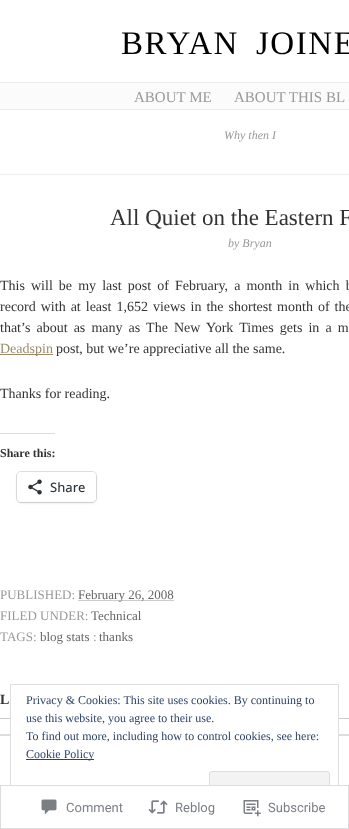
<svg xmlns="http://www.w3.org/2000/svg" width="349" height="829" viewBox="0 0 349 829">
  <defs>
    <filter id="blur1" x="-50%" y="-200%" width="200%" height="500%"><feGaussianBlur stdDeviation="1"/></filter>
  </defs>
  <rect width="100%" height="100%" fill="#ffffff"/>
  <text x="121" y="54" word-spacing="7" font-family="Liberation Serif" font-size="33" letter-spacing="1.6" fill="#000000">BRYAN JOINE</text>
  <rect x="0" y="83" width="349" height="26" fill="#fbfbfb"/>
  <rect x="0" y="82" width="349" height="1" fill="#eaeaea"/>
  <rect x="0" y="109" width="349" height="1" fill="#eaeaea"/>
  <text x="134" y="102" font-family="Liberation Serif" font-size="15" fill="#999999">ABOUT ME</text>
  <text x="234" y="102" font-family="Liberation Serif" font-size="15" fill="#999999">ABOUT THIS BL</text>
  <text x="224" y="139" font-family="Liberation Serif" font-size="12" font-style="italic" fill="#999999">Why then I</text>
  <rect x="0" y="174" width="349" height="1" fill="#efefef"/>
  <text x="110" y="225" font-family="Liberation Serif" font-size="23" fill="#333333">All Quiet on the Eastern F</text>
  <text x="228" y="247" font-family="Liberation Serif" font-size="12" font-style="italic" fill="#999999">by Bryan</text>
  <text x="0" y="290" word-spacing="2.6" font-family="Liberation Serif" font-size="14" fill="#333333">This will be my last post of February, a month in which b</text>
  <text x="0" y="311" word-spacing="1.5" font-family="Liberation Serif" font-size="14" fill="#333333">record with at least 1,652 views in the shortest month of the</text>
  <text x="0" y="332" word-spacing="2.6" font-family="Liberation Serif" font-size="14" fill="#333333">that’s about as many as The New York Times gets in a m</text>
  <rect x="0" y="354" width="53" height="1" fill="#9c8a6a"/>
  <text x="0" y="353" font-family="Liberation Serif" font-size="14" fill="#9c8a6a">Deadspin</text>
  <text x="56" y="353" font-family="Liberation Serif" font-size="14" fill="#333333">post, but we’re appreciative all the same.</text>
  <text x="0" y="398" font-family="Liberation Serif" font-size="14" fill="#333333">Thanks for reading.</text>
  <rect x="0" y="433" width="55" height="1" fill="#dcdcde"/>
  <text x="0" y="457" font-family="Liberation Serif" font-size="12" font-weight="bold" fill="#333333">Share this:</text>
  <rect x="16.5" y="471.5" width="80" height="31" rx="4.5" fill="none" stroke="#e0e0e0"/>
  <rect x="17" y="473" width="79" height="30" rx="4" fill="#000000" fill-opacity="0.12" filter="url(#blur1)"/>
  <rect x="17" y="472" width="79" height="30" rx="4" fill="#ffffff"/>
  <image x="28" y="479" width="14" height="16" href="img1.png"/>
  <text x="50" y="492" font-family="Open Sans" font-size="13" font-weight="500" fill="#2c3338">Share</text>
  <text x="0" y="599" font-family="Liberation Serif" font-size="13" fill="#999999">PUBLISHED:</text>
  <path d="M78.5 600.5H174" fill="none" stroke="#999999" stroke-dasharray="1 1"/>
  <text x="78" y="599" font-family="Liberation Serif" font-size="13" fill="#666666">February 26, 2008</text>
  <text x="0" y="620" font-family="Liberation Serif" font-size="13" fill="#999999">FILED UNDER:</text>
  <text x="91" y="620" font-family="Liberation Serif" font-size="13" fill="#666666">Technical</text>
  <text x="0" y="641" font-family="Liberation Serif" font-size="13" fill="#999999">TAGS:</text>
  <text x="40" y="641" font-family="Liberation Serif" font-size="13" fill="#666666">blog stats</text>
  <text x="93" y="641" font-family="Liberation Serif" font-size="13" fill="#999999">:</text>
  <text x="99" y="641" font-family="Liberation Serif" font-size="13" fill="#666666">thanks</text>
  <rect x="0" y="718" width="349" height="1" fill="#cccccc"/>
  <text x="0" y="704" font-family="Liberation Serif" font-size="14" font-weight="bold" fill="#333333">L</text>
  <rect x="0" y="734" width="349" height="2" fill="#dcdcde"/>
  <rect x="11" y="718" width="327" height="18" fill="#ffffff"/>
  <rect x="10.5" y="684.5" width="328" height="134" fill="none" stroke="#dedede"/>
  <text x="26" y="704" font-family="Liberation Serif" font-size="12" fill="#2e4467">Privacy &amp; Cookies: This site uses cookies. By continuing to</text>
  <text x="26" y="722" font-family="Liberation Serif" font-size="12" fill="#2e4467">use this website, you agree to their use.</text>
  <text x="26" y="740" font-family="Liberation Serif" font-size="12" fill="#2e4467">To find out more, including how to control cookies, see here:</text>
  <rect x="26" y="759" width="68" height="1" fill="#2e4467"/>
  <text x="26" y="758" font-family="Liberation Serif" font-size="12" fill="#2e4467">Cookie Policy</text>
  <rect x="209.5" y="771.5" width="120" height="38" rx="2.5" fill="#f3f3f3" stroke="#dedede"/>
  <rect x="10" y="785" width="329" height="34" fill="#ffffff" fill-opacity="0.98"/>
  <rect x="0.5" y="785.5" width="348" height="43" fill="none" stroke="#dcdcde" stroke-opacity="0.98"/>
  <image x="41" y="799" width="16" height="16" href="img2.png"/>
  <text x="66" y="812" font-family="Roboto" font-size="13" fill="#7b7f85">Comment</text>
  <image x="148" y="800" width="20" height="14" href="img3.png"/>
  <text x="175" y="812" font-family="Roboto" font-size="13" fill="#7b7f85">Reblog</text>
  <image x="243" y="800" width="18" height="17" href="img4.png"/>
  <text x="268" y="812" font-family="Roboto" font-size="13" fill="#7b7f85">Subscribe</text>
</svg>
